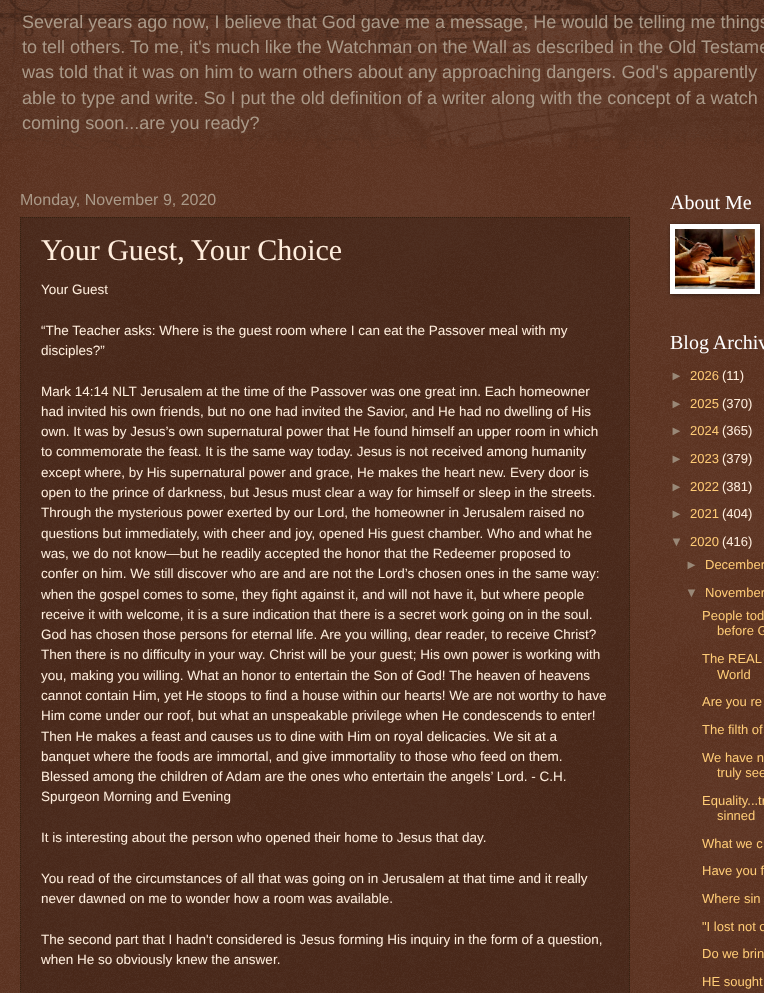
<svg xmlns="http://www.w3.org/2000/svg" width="764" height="993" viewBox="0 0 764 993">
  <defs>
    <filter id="blur1" x="-50%" y="-200%" width="200%" height="500%"><feGaussianBlur stdDeviation="2.5"/></filter>
  </defs>
  <rect width="100%" height="100%" fill="#441500"/>
  <image x="0" y="0" width="764" height="993" href="img1.png"/>
  <image x="0" y="0" width="764" height="149" href="img2.png"/>
  <text x="22" y="28" font-family="Liberation Sans" font-size="18.05" fill="#aa9988">Several years ago now, I believe that God gave me a message, He would be telling me things</text>
  <text x="22" y="53" font-family="Liberation Sans" font-size="18.05" fill="#aa9988">to tell others.</text>
  <text x="130" y="53" font-family="Liberation Sans" font-size="18.05" fill="#aa9988">To me, it's much like the Watchman on the Wall as described in the Old Testame</text>
  <text x="22" y="78" font-family="Liberation Sans" font-size="18.05" fill="#aa9988">was told that it was on him to warn others about any approaching dangers. God's apparently</text>
  <text x="22" y="104" font-family="Liberation Sans" font-size="18.05" fill="#aa9988">able to type and write. So I put the old definition of a writer along with the concept of a watch</text>
  <text x="22" y="129" font-family="Liberation Sans" font-size="18.05" fill="#aa9988">coming soon...are you ready?</text>
  <text x="20" y="205" font-family="Liberation Sans" font-size="16" fill="#aa9988">Monday, November 9, 2020</text>
  <rect x="20" y="217" width="610" height="776" fill="#000000" fill-opacity="0.2"/>
  <path d="M20 217.5H630" fill="none" stroke="#332211" stroke-dasharray="1 1"/>
  <path d="M629.5 217V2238" fill="none" stroke="#332211" stroke-dasharray="1 1"/>
  <path d="M20.5 217V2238" fill="none" stroke="#332211" stroke-dasharray="1 1"/>
  <text x="41" y="260" font-family="Liberation Serif" font-size="30" fill="#ffeedd">Your Guest, Your Choice</text>
  <text x="41" y="294" font-family="Liberation Sans" font-size="13.5" fill="#ffeedd">Your Guest</text>
  <text x="41" y="335" font-family="Liberation Sans" font-size="13.5" fill="#ffeedd">“The Teacher asks: Where is the guest room where I can eat the Passover meal with my</text>
  <text x="41" y="355" font-family="Liberation Sans" font-size="13.5" fill="#ffeedd">disciples?”</text>
  <text x="41" y="396" font-family="Liberation Sans" font-size="13.5" fill="#ffeedd">Mark 14:14 NLT Jerusalem at the time of the Passover was one great inn. Each homeowner</text>
  <text x="41" y="416" font-family="Liberation Sans" font-size="13.5" fill="#ffeedd">had invited his own friends, but no one had invited the Savior, and He had no dwelling of His</text>
  <text x="41" y="436" font-family="Liberation Sans" font-size="13.5" fill="#ffeedd">own. It was by Jesus’s own supernatural power that He found himself an upper room in which</text>
  <text x="41" y="456" font-family="Liberation Sans" font-size="13.5" fill="#ffeedd">to commemorate the feast. It is the same way today. Jesus is not received among humanity</text>
  <text x="41" y="477" font-family="Liberation Sans" font-size="13.5" fill="#ffeedd">except where, by His supernatural power and grace, He makes the heart new. Every door is</text>
  <text x="41" y="497" font-family="Liberation Sans" font-size="13.5" fill="#ffeedd">open to the prince of darkness, but Jesus must clear a way for himself or sleep in the streets.</text>
  <text x="41" y="517" font-family="Liberation Sans" font-size="13.5" fill="#ffeedd">Through the mysterious power exerted by our Lord, the homeowner in Jerusalem raised no</text>
  <text x="41" y="538" font-family="Liberation Sans" font-size="13.5" fill="#ffeedd">questions but immediately, with cheer and joy, opened His guest chamber. Who and what he</text>
  <text x="41" y="558" font-family="Liberation Sans" font-size="13.5" fill="#ffeedd">was, we do not know—but he readily accepted the honor that the Redeemer proposed to</text>
  <text x="41" y="578" font-family="Liberation Sans" font-size="13.5" fill="#ffeedd">confer on him. We still discover who are and are not the Lord’s chosen ones in the same way:</text>
  <text x="41" y="599" font-family="Liberation Sans" font-size="13.5" fill="#ffeedd">when the gospel comes to some, they fight against it, and will not have it, but where people</text>
  <text x="41" y="619" font-family="Liberation Sans" font-size="13.5" fill="#ffeedd">receive it with welcome, it is a sure indication that there is a secret work going on in the soul.</text>
  <text x="41" y="639" font-family="Liberation Sans" font-size="13.5" fill="#ffeedd">God has chosen those persons for eternal life. Are you willing, dear reader, to receive Christ?</text>
  <text x="41" y="659" font-family="Liberation Sans" font-size="13.5" fill="#ffeedd">Then there is no difficulty in your way. Christ will be your guest; His own power is working with</text>
  <text x="41" y="680" font-family="Liberation Sans" font-size="13.5" fill="#ffeedd">you, making you willing. What an honor to entertain the Son of God! The heaven of heavens</text>
  <text x="41" y="700" font-family="Liberation Sans" font-size="13.5" fill="#ffeedd">cannot contain Him, yet He stoops to find a house within our hearts! We are not worthy to have</text>
  <text x="41" y="720" font-family="Liberation Sans" font-size="13.5" fill="#ffeedd">Him come under our roof, but what an unspeakable privilege when He condescends to enter!</text>
  <text x="41" y="741" font-family="Liberation Sans" font-size="13.5" fill="#ffeedd">Then He makes a feast and causes us to dine with Him on royal delicacies. We sit at a</text>
  <text x="41" y="761" font-family="Liberation Sans" font-size="13.5" fill="#ffeedd">banquet where the foods are immortal, and give immortality to those who feed on them.</text>
  <text x="41" y="781" font-family="Liberation Sans" font-size="13.5" fill="#ffeedd">Blessed among the children of Adam are the ones who entertain the angels’ Lord. - C.H.</text>
  <text x="41" y="801" font-family="Liberation Sans" font-size="13.5" fill="#ffeedd">Spurgeon Morning and Evening</text>
  <text x="41" y="842" font-family="Liberation Sans" font-size="13.5" fill="#ffeedd">It is interesting about the person who opened their home to Jesus that day.</text>
  <text x="41" y="883" font-family="Liberation Sans" font-size="13.5" fill="#ffeedd">You read of the circumstances of all that was going on in Jerusalem at that time and it really</text>
  <text x="41" y="903" font-family="Liberation Sans" font-size="13.5" fill="#ffeedd">never dawned on me to wonder how a room was available.</text>
  <text x="41" y="944" font-family="Liberation Sans" font-size="13.5" fill="#ffeedd">The second part that I hadn't considered is Jesus forming His inquiry in the form of a question,</text>
  <text x="41" y="964" font-family="Liberation Sans" font-size="13.5" fill="#ffeedd">when He so obviously knew the answer.</text>
  <text x="670" y="209" font-family="Liberation Serif" font-size="20" fill="#ffffff">About Me</text>
  <rect x="671" y="225" width="90" height="70" fill="#000000" fill-opacity="0.5" filter="url(#blur1)"/>
  <rect x="670" y="224" width="90" height="70" fill="#ffffff"/>
  <image x="675" y="229" width="80" height="60" href="img3.png"/>
  <text x="670" y="349" font-family="Liberation Serif" font-size="20" fill="#ffffff">Blog Archiv</text>
  <text x="670" y="380" font-family="Liberation Sans" font-size="13" fill="#998877">►</text>
  <text x="690" y="380" font-family="Liberation Sans" font-size="13" fill="#ffcc77">2026</text>
  <text x="722" y="380" font-family="Liberation Sans" font-size="13" fill="#ffeedd">(11)</text>
  <text x="670" y="408" font-family="Liberation Sans" font-size="13" fill="#998877">►</text>
  <text x="690" y="408" font-family="Liberation Sans" font-size="13" fill="#ffcc77">2025</text>
  <text x="722" y="408" font-family="Liberation Sans" font-size="13" fill="#ffeedd">(370)</text>
  <text x="670" y="435" font-family="Liberation Sans" font-size="13" fill="#998877">►</text>
  <text x="690" y="435" font-family="Liberation Sans" font-size="13" fill="#ffcc77">2024</text>
  <text x="722" y="435" font-family="Liberation Sans" font-size="13" fill="#ffeedd">(365)</text>
  <text x="670" y="463" font-family="Liberation Sans" font-size="13" fill="#998877">►</text>
  <text x="690" y="463" font-family="Liberation Sans" font-size="13" fill="#ffcc77">2023</text>
  <text x="722" y="463" font-family="Liberation Sans" font-size="13" fill="#ffeedd">(379)</text>
  <text x="670" y="491" font-family="Liberation Sans" font-size="13" fill="#998877">►</text>
  <text x="690" y="491" font-family="Liberation Sans" font-size="13" fill="#ffcc77">2022</text>
  <text x="722" y="491" font-family="Liberation Sans" font-size="13" fill="#ffeedd">(381)</text>
  <text x="670" y="518" font-family="Liberation Sans" font-size="13" fill="#998877">►</text>
  <text x="690" y="518" font-family="Liberation Sans" font-size="13" fill="#ffcc77">2021</text>
  <text x="722" y="518" font-family="Liberation Sans" font-size="13" fill="#ffeedd">(404)</text>
  <text x="670" y="546" font-family="Liberation Sans" font-size="13" fill="#998877">▼</text>
  <text x="690" y="546" font-family="Liberation Sans" font-size="13" fill="#ffcc77">2020</text>
  <text x="722" y="546" font-family="Liberation Sans" font-size="13" fill="#ffeedd">(416)</text>
  <text x="685" y="569" font-family="Liberation Sans" font-size="13" fill="#998877">►</text>
  <text x="705" y="569" font-family="Liberation Sans" font-size="13" fill="#ffcc77">December</text>
  <text x="685" y="597" font-family="Liberation Sans" font-size="13" fill="#998877">▼</text>
  <text x="705" y="597" font-family="Liberation Sans" font-size="13" fill="#ffcc77">November</text>
  <text x="702" y="620" font-family="Liberation Sans" font-size="13" fill="#ffcc77">People tod</text>
  <text x="717" y="635" font-family="Liberation Sans" font-size="13" fill="#ffcc77">before G</text>
  <text x="702" y="663" font-family="Liberation Sans" font-size="13" fill="#ffcc77">The REAL</text>
  <text x="717" y="679" font-family="Liberation Sans" font-size="13" fill="#ffcc77">World</text>
  <text x="702" y="706" font-family="Liberation Sans" font-size="13" fill="#ffcc77">Are you re</text>
  <text x="702" y="734" font-family="Liberation Sans" font-size="13" fill="#ffcc77">The filth of</text>
  <text x="702" y="762" font-family="Liberation Sans" font-size="13" fill="#ffcc77">We have n</text>
  <text x="717" y="777" font-family="Liberation Sans" font-size="13" fill="#ffcc77">truly see</text>
  <text x="702" y="805" font-family="Liberation Sans" font-size="13" fill="#ffcc77">Equality...tr</text>
  <text x="717" y="820" font-family="Liberation Sans" font-size="13" fill="#ffcc77">sinned</text>
  <text x="702" y="848" font-family="Liberation Sans" font-size="13" fill="#ffcc77">What we c</text>
  <text x="702" y="875" font-family="Liberation Sans" font-size="13" fill="#ffcc77">Have you f</text>
  <text x="702" y="903" font-family="Liberation Sans" font-size="13" fill="#ffcc77">Where sin</text>
  <text x="702" y="931" font-family="Liberation Sans" font-size="13" fill="#ffcc77">"I lost not o</text>
  <text x="702" y="958" font-family="Liberation Sans" font-size="13" fill="#ffcc77">Do we brin</text>
  <text x="702" y="986" font-family="Liberation Sans" font-size="13" fill="#ffcc77">HE sought</text>
</svg>
